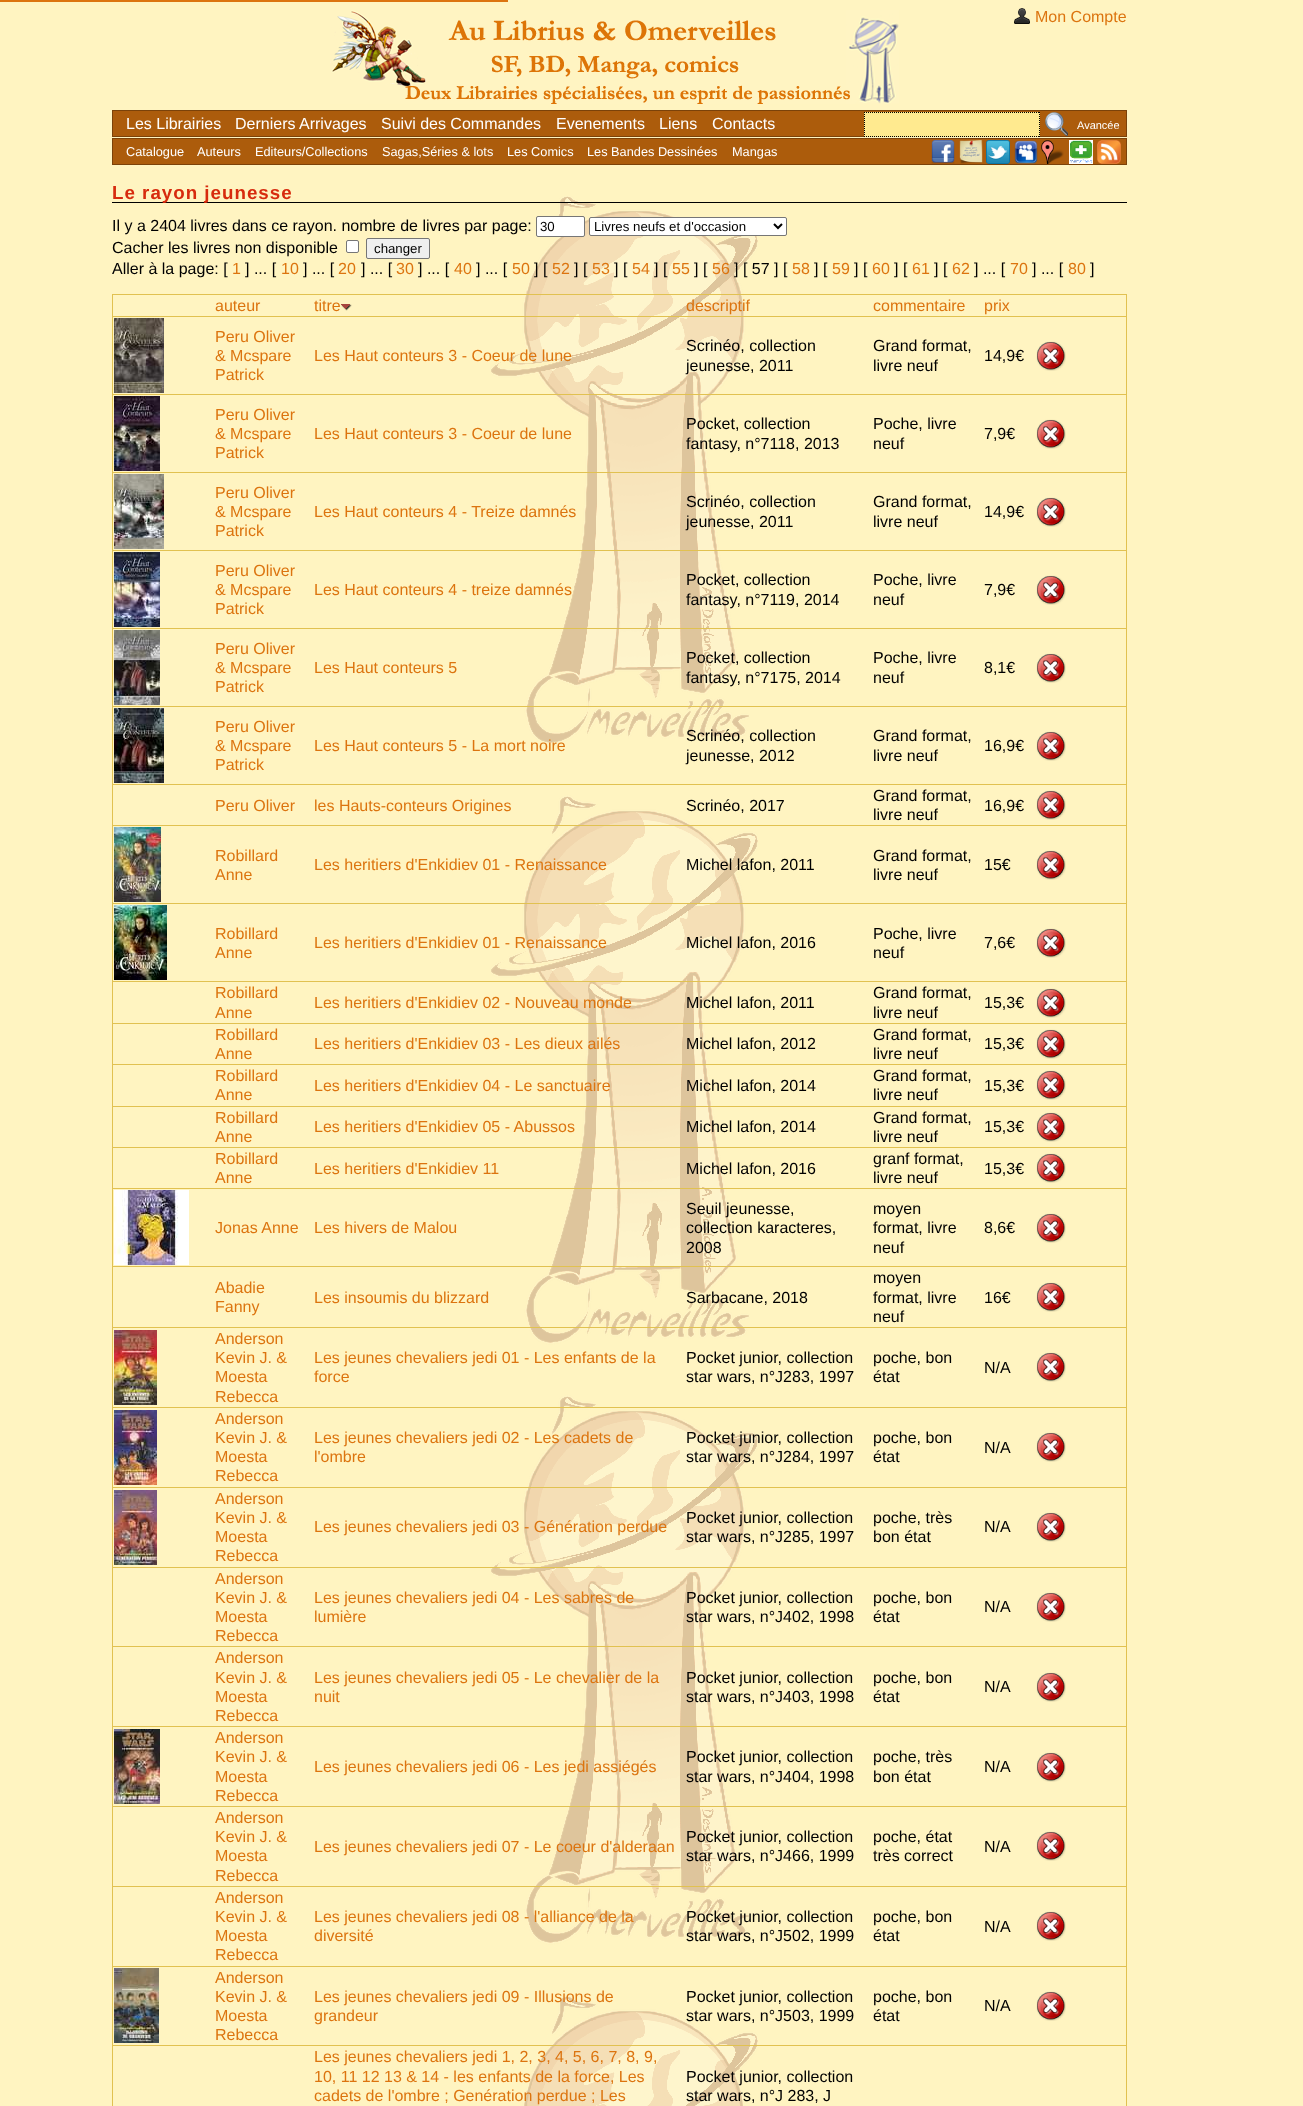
<svg xmlns="http://www.w3.org/2000/svg" width="1303" height="2106" viewBox="0 0 1303 2106">
  <rect width="100%" height="100%" fill="#fff4c1"/>
  <rect x="0" y="0" width="508" height="2" fill="#dc740f"/>
  <image x="330" y="10" width="569" height="94" href="img1.png"/>
  <image x="1014" y="8" width="16" height="16" href="img2.png"/>
  <text x="1035" y="22" font-family="Liberation Sans" font-size="16" fill="#dc740f">Mon Compte</text>
  <rect x="112.5" y="110.5" width="1014" height="26" fill="#ac5c0c" stroke="#7b4209"/>
  <text x="126" y="129" font-family="Liberation Sans" font-size="16" fill="#ffffff">Les Librairies</text>
  <text x="235" y="129" font-family="Liberation Sans" font-size="16" fill="#ffffff">Derniers Arrivages</text>
  <text x="381" y="129" font-family="Liberation Sans" font-size="16" fill="#ffffff">Suivi des Commandes</text>
  <text x="556" y="129" font-family="Liberation Sans" font-size="16" fill="#ffffff">Evenements</text>
  <text x="659" y="129" font-family="Liberation Sans" font-size="16" fill="#ffffff">Liens</text>
  <text x="712" y="129" font-family="Liberation Sans" font-size="16" fill="#ffffff">Contacts</text>
  <rect x="864" y="112" width="176" height="25" fill="#ffea8f"/>
  <path d="M864 112.5H1040" fill="none" stroke="#000000" stroke-dasharray="1 1"/>
  <path d="M1039.5 112V137" fill="none" stroke="#000000" stroke-dasharray="1 1"/>
  <path d="M864 136.5H1040" fill="none" stroke="#000000" stroke-dasharray="1 1"/>
  <path d="M864.5 112V137" fill="none" stroke="#000000" stroke-dasharray="1 1"/>
  <image x="1045" y="112" width="23" height="24" href="img3.png"/>
  <text x="1077" y="129" font-family="Liberation Sans" font-size="11" fill="#ffffff">Avancée</text>
  <rect x="112.5" y="138.5" width="1014" height="26" fill="#ac5c0c" stroke="#7b4209"/>
  <text x="126" y="156" font-family="Liberation Sans" font-size="12.75" fill="#ffffff">Catalogue</text>
  <text x="197" y="156" font-family="Liberation Sans" font-size="12.75" fill="#ffffff">Auteurs</text>
  <text x="255" y="156" font-family="Liberation Sans" font-size="12.75" fill="#ffffff">Editeurs/Collections</text>
  <text x="382" y="156" font-family="Liberation Sans" font-size="12.75" fill="#ffffff">Sagas,Séries &amp; lots</text>
  <text x="507" y="156" font-family="Liberation Sans" font-size="12.75" fill="#ffffff">Les Comics</text>
  <text x="587" y="156" font-family="Liberation Sans" font-size="12.75" fill="#ffffff">Les Bandes Dessinées</text>
  <text x="732" y="156" font-family="Liberation Sans" font-size="12.75" fill="#ffffff">Mangas</text>
  <image x="931" y="140" width="24" height="24" href="img4.png"/>
  <image x="959" y="140" width="24" height="24" href="img5.png"/>
  <image x="986" y="140" width="24" height="24" href="img6.png"/>
  <image x="1014" y="140" width="24" height="24" href="img7.png"/>
  <image x="1041" y="140" width="23" height="24" href="img8.png"/>
  <image x="1069" y="140" width="24" height="24" href="img9.png"/>
  <image x="1097" y="140" width="24" height="24" href="img10.png"/>
  <image x="491" y="196" width="267" height="1910" href="img11.png"/>
  <rect x="112" y="202" width="1015" height="1" fill="#000000"/>
  <text x="112" y="199" font-family="Liberation Sans" font-size="18.75" font-weight="bold" letter-spacing="1" fill="#d72b0e">Le rayon jeunesse</text>
  <text x="112" y="231" font-family="Liberation Sans" font-size="16" fill="#000000">Il y a 2404 livres dans ce rayon. nombre de livres par page:</text>
  <rect x="536.5" y="216.5" width="48" height="20" rx="1.5" fill="#ffffff" stroke="#767676"/>
  <text x="540" y="231" font-family="Liberation Sans" font-size="13.25" fill="#000000">30</text>
  <rect x="589.5" y="217.5" width="197" height="18" rx="1.5" fill="#ffffff" stroke="#767676"/>
  <path d="M774 224L778 228L782 224" fill="none" stroke="#000000" stroke-width="2"/>
  <text x="594" y="231" font-family="Liberation Sans" font-size="13.25" fill="#000000">Livres neufs et d'occasion</text>
  <text x="112" y="253" font-family="Liberation Sans" font-size="16" fill="#000000">Cacher les livres non disponible</text>
  <rect x="346.5" y="240.5" width="12" height="12" rx="1.5" fill="#ffffff" stroke="#767676"/>
  <rect x="366.5" y="238.5" width="63" height="20" rx="1.5" fill="#efefef" stroke="#767676"/>
  <text x="374" y="253" font-family="Liberation Sans" font-size="13.25" fill="#000000">changer</text>
  <text x="112" y="274" font-family="Liberation Sans" font-size="16" fill="#000000">Aller à la page: [</text>
  <text x="232" y="274" font-family="Liberation Sans" font-size="16" fill="#dc740f">1</text>
  <text x="245" y="274" font-family="Liberation Sans" font-size="16" fill="#000000">] ... [</text>
  <text x="281" y="274" font-family="Liberation Sans" font-size="16" fill="#dc740f">10</text>
  <text x="303" y="274" font-family="Liberation Sans" font-size="16" fill="#000000">] ... [</text>
  <text x="338" y="274" font-family="Liberation Sans" font-size="16" fill="#dc740f">20</text>
  <text x="361" y="274" font-family="Liberation Sans" font-size="16" fill="#000000">] ... [</text>
  <text x="396" y="274" font-family="Liberation Sans" font-size="16" fill="#dc740f">30</text>
  <text x="418" y="274" font-family="Liberation Sans" font-size="16" fill="#000000">] ... [</text>
  <text x="454" y="274" font-family="Liberation Sans" font-size="16" fill="#dc740f">40</text>
  <text x="476" y="274" font-family="Liberation Sans" font-size="16" fill="#000000">] ... [</text>
  <text x="512" y="274" font-family="Liberation Sans" font-size="16" fill="#dc740f">50</text>
  <text x="534" y="274" font-family="Liberation Sans" font-size="16" fill="#000000">] [</text>
  <text x="552" y="274" font-family="Liberation Sans" font-size="16" fill="#dc740f">52</text>
  <text x="574" y="274" font-family="Liberation Sans" font-size="16" fill="#000000">] [</text>
  <text x="592" y="274" font-family="Liberation Sans" font-size="16" fill="#dc740f">53</text>
  <text x="614" y="274" font-family="Liberation Sans" font-size="16" fill="#000000">] [</text>
  <text x="632" y="274" font-family="Liberation Sans" font-size="16" fill="#dc740f">54</text>
  <text x="654" y="274" font-family="Liberation Sans" font-size="16" fill="#000000">] [</text>
  <text x="672" y="274" font-family="Liberation Sans" font-size="16" fill="#dc740f">55</text>
  <text x="694" y="274" font-family="Liberation Sans" font-size="16" fill="#000000">] [</text>
  <text x="712" y="274" font-family="Liberation Sans" font-size="16" fill="#dc740f">56</text>
  <text x="734" y="274" font-family="Liberation Sans" font-size="16" fill="#000000">] [ 57 ] [</text>
  <text x="792" y="274" font-family="Liberation Sans" font-size="16" fill="#dc740f">58</text>
  <text x="814" y="274" font-family="Liberation Sans" font-size="16" fill="#000000">] [</text>
  <text x="832" y="274" font-family="Liberation Sans" font-size="16" fill="#dc740f">59</text>
  <text x="854" y="274" font-family="Liberation Sans" font-size="16" fill="#000000">] [</text>
  <text x="872" y="274" font-family="Liberation Sans" font-size="16" fill="#dc740f">60</text>
  <text x="894" y="274" font-family="Liberation Sans" font-size="16" fill="#000000">] [</text>
  <text x="912" y="274" font-family="Liberation Sans" font-size="16" fill="#dc740f">61</text>
  <text x="934" y="274" font-family="Liberation Sans" font-size="16" fill="#000000">] [</text>
  <text x="952" y="274" font-family="Liberation Sans" font-size="16" fill="#dc740f">62</text>
  <text x="974" y="274" font-family="Liberation Sans" font-size="16" fill="#000000">] ... [</text>
  <text x="1010" y="274" font-family="Liberation Sans" font-size="16" fill="#dc740f">70</text>
  <text x="1032" y="274" font-family="Liberation Sans" font-size="16" fill="#000000">] ... [</text>
  <text x="1068" y="274" font-family="Liberation Sans" font-size="16" fill="#dc740f">80</text>
  <text x="1090" y="274" font-family="Liberation Sans" font-size="16" fill="#000000">]</text>
  <rect x="112" y="294" width="1015" height="1" fill="#e1c151"/>
  <rect x="1126" y="294" width="1" height="1812" fill="#e1c151"/>
  <rect x="112" y="294" width="1" height="1812" fill="#e1c151"/>
  <rect x="112" y="316" width="1015" height="1" fill="#e1c151"/>
  <text x="215" y="311" font-family="Liberation Sans" font-size="16" fill="#dc740f">auteur</text>
  <text x="314" y="311" font-family="Liberation Sans" font-size="16" fill="#dc740f">titre</text>
  <image x="341" y="304" width="11" height="7" href="img12.png"/>
  <text x="686" y="311" font-family="Liberation Sans" font-size="16" fill="#dc740f">descriptif</text>
  <text x="873" y="311" font-family="Liberation Sans" font-size="16" fill="#dc740f">commentaire</text>
  <text x="984" y="311" font-family="Liberation Sans" font-size="16" fill="#dc740f">prix</text>
  <rect x="112" y="394" width="1015" height="1" fill="#e1c151"/>
  <image x="114" y="318" width="50" height="75" href="img13.png"/>
  <text x="215" y="342" font-family="Liberation Sans" font-size="16" fill="#dc740f">Peru Oliver</text>
  <text x="215" y="361" font-family="Liberation Sans" font-size="16" fill="#dc740f">&amp; Mcspare</text>
  <text x="215" y="380" font-family="Liberation Sans" font-size="16" fill="#dc740f">Patrick</text>
  <text x="314" y="361" font-family="Liberation Sans" font-size="16" fill="#dc740f">Les Haut conteurs 3 - Coeur de lune</text>
  <text x="686" y="351" font-family="Liberation Sans" font-size="16" fill="#000000">Scrinéo, collection</text>
  <text x="686" y="371" font-family="Liberation Sans" font-size="16" fill="#000000">jeunesse, 2011</text>
  <text x="873" y="351" font-family="Liberation Sans" font-size="16" fill="#000000">Grand format,</text>
  <text x="873" y="371" font-family="Liberation Sans" font-size="16" fill="#000000">livre neuf</text>
  <text x="984" y="361" font-family="Liberation Sans" font-size="16" fill="#000000">14,9€</text>
  <image x="1036" y="341" width="30" height="30" href="img14.png"/>
  <rect x="112" y="472" width="1015" height="1" fill="#e1c151"/>
  <image x="114" y="396" width="46" height="75" href="img15.png"/>
  <text x="215" y="420" font-family="Liberation Sans" font-size="16" fill="#dc740f">Peru Oliver</text>
  <text x="215" y="439" font-family="Liberation Sans" font-size="16" fill="#dc740f">&amp; Mcspare</text>
  <text x="215" y="458" font-family="Liberation Sans" font-size="16" fill="#dc740f">Patrick</text>
  <text x="314" y="439" font-family="Liberation Sans" font-size="16" fill="#dc740f">Les Haut conteurs 3 - Coeur de lune</text>
  <text x="686" y="429" font-family="Liberation Sans" font-size="16" fill="#000000">Pocket, collection</text>
  <text x="686" y="449" font-family="Liberation Sans" font-size="16" fill="#000000">fantasy, n°7118, 2013</text>
  <text x="873" y="429" font-family="Liberation Sans" font-size="16" fill="#000000">Poche, livre</text>
  <text x="873" y="449" font-family="Liberation Sans" font-size="16" fill="#000000">neuf</text>
  <text x="984" y="439" font-family="Liberation Sans" font-size="16" fill="#000000">7,9€</text>
  <image x="1036" y="419" width="30" height="30" href="img14.png"/>
  <rect x="112" y="550" width="1015" height="1" fill="#e1c151"/>
  <image x="114" y="474" width="50" height="75" href="img16.png"/>
  <text x="215" y="498" font-family="Liberation Sans" font-size="16" fill="#dc740f">Peru Oliver</text>
  <text x="215" y="517" font-family="Liberation Sans" font-size="16" fill="#dc740f">&amp; Mcspare</text>
  <text x="215" y="536" font-family="Liberation Sans" font-size="16" fill="#dc740f">Patrick</text>
  <text x="314" y="517" font-family="Liberation Sans" font-size="16" fill="#dc740f">Les Haut conteurs 4 - Treize damnés</text>
  <text x="686" y="507" font-family="Liberation Sans" font-size="16" fill="#000000">Scrinéo, collection</text>
  <text x="686" y="527" font-family="Liberation Sans" font-size="16" fill="#000000">jeunesse, 2011</text>
  <text x="873" y="507" font-family="Liberation Sans" font-size="16" fill="#000000">Grand format,</text>
  <text x="873" y="527" font-family="Liberation Sans" font-size="16" fill="#000000">livre neuf</text>
  <text x="984" y="517" font-family="Liberation Sans" font-size="16" fill="#000000">14,9€</text>
  <image x="1036" y="497" width="30" height="30" href="img14.png"/>
  <rect x="112" y="628" width="1015" height="1" fill="#e1c151"/>
  <image x="114" y="552" width="46" height="75" href="img17.png"/>
  <text x="215" y="576" font-family="Liberation Sans" font-size="16" fill="#dc740f">Peru Oliver</text>
  <text x="215" y="595" font-family="Liberation Sans" font-size="16" fill="#dc740f">&amp; Mcspare</text>
  <text x="215" y="614" font-family="Liberation Sans" font-size="16" fill="#dc740f">Patrick</text>
  <text x="314" y="595" font-family="Liberation Sans" font-size="16" fill="#dc740f">Les Haut conteurs 4 - treize damnés</text>
  <text x="686" y="585" font-family="Liberation Sans" font-size="16" fill="#000000">Pocket, collection</text>
  <text x="686" y="605" font-family="Liberation Sans" font-size="16" fill="#000000">fantasy, n°7119, 2014</text>
  <text x="873" y="585" font-family="Liberation Sans" font-size="16" fill="#000000">Poche, livre</text>
  <text x="873" y="605" font-family="Liberation Sans" font-size="16" fill="#000000">neuf</text>
  <text x="984" y="595" font-family="Liberation Sans" font-size="16" fill="#000000">7,9€</text>
  <image x="1036" y="575" width="30" height="30" href="img14.png"/>
  <rect x="112" y="706" width="1015" height="1" fill="#e1c151"/>
  <image x="114" y="630" width="46" height="75" href="img18.png"/>
  <text x="215" y="654" font-family="Liberation Sans" font-size="16" fill="#dc740f">Peru Oliver</text>
  <text x="215" y="673" font-family="Liberation Sans" font-size="16" fill="#dc740f">&amp; Mcspare</text>
  <text x="215" y="692" font-family="Liberation Sans" font-size="16" fill="#dc740f">Patrick</text>
  <text x="314" y="673" font-family="Liberation Sans" font-size="16" fill="#dc740f">Les Haut conteurs 5</text>
  <text x="686" y="663" font-family="Liberation Sans" font-size="16" fill="#000000">Pocket, collection</text>
  <text x="686" y="683" font-family="Liberation Sans" font-size="16" fill="#000000">fantasy, n°7175, 2014</text>
  <text x="873" y="663" font-family="Liberation Sans" font-size="16" fill="#000000">Poche, livre</text>
  <text x="873" y="683" font-family="Liberation Sans" font-size="16" fill="#000000">neuf</text>
  <text x="984" y="673" font-family="Liberation Sans" font-size="16" fill="#000000">8,1€</text>
  <image x="1036" y="653" width="30" height="30" href="img14.png"/>
  <rect x="112" y="784" width="1015" height="1" fill="#e1c151"/>
  <image x="114" y="708" width="50" height="75" href="img19.png"/>
  <text x="215" y="732" font-family="Liberation Sans" font-size="16" fill="#dc740f">Peru Oliver</text>
  <text x="215" y="751" font-family="Liberation Sans" font-size="16" fill="#dc740f">&amp; Mcspare</text>
  <text x="215" y="770" font-family="Liberation Sans" font-size="16" fill="#dc740f">Patrick</text>
  <text x="314" y="751" font-family="Liberation Sans" font-size="16" fill="#dc740f">Les Haut conteurs 5 - La mort noire</text>
  <text x="686" y="741" font-family="Liberation Sans" font-size="16" fill="#000000">Scrinéo, collection</text>
  <text x="686" y="761" font-family="Liberation Sans" font-size="16" fill="#000000">jeunesse, 2012</text>
  <text x="873" y="741" font-family="Liberation Sans" font-size="16" fill="#000000">Grand format,</text>
  <text x="873" y="761" font-family="Liberation Sans" font-size="16" fill="#000000">livre neuf</text>
  <text x="984" y="751" font-family="Liberation Sans" font-size="16" fill="#000000">16,9€</text>
  <image x="1036" y="731" width="30" height="30" href="img14.png"/>
  <rect x="112" y="825" width="1015" height="1" fill="#e1c151"/>
  <text x="215" y="811" font-family="Liberation Sans" font-size="16" fill="#dc740f">Peru Oliver</text>
  <text x="314" y="811" font-family="Liberation Sans" font-size="16" fill="#dc740f">les Hauts-conteurs Origines</text>
  <text x="686" y="811" font-family="Liberation Sans" font-size="16" fill="#000000">Scrinéo, 2017</text>
  <text x="873" y="801" font-family="Liberation Sans" font-size="16" fill="#000000">Grand format,</text>
  <text x="873" y="820" font-family="Liberation Sans" font-size="16" fill="#000000">livre neuf</text>
  <text x="984" y="811" font-family="Liberation Sans" font-size="16" fill="#000000">16,9€</text>
  <image x="1036" y="790" width="30" height="30" href="img14.png"/>
  <rect x="112" y="903" width="1015" height="1" fill="#e1c151"/>
  <image x="114" y="827" width="47" height="75" href="img20.png"/>
  <text x="215" y="861" font-family="Liberation Sans" font-size="16" fill="#dc740f">Robillard</text>
  <text x="215" y="880" font-family="Liberation Sans" font-size="16" fill="#dc740f">Anne</text>
  <text x="314" y="870" font-family="Liberation Sans" font-size="16" fill="#dc740f">Les heritiers d'Enkidiev 01 - Renaissance</text>
  <text x="686" y="870" font-family="Liberation Sans" font-size="16" fill="#000000">Michel lafon, 2011</text>
  <text x="873" y="861" font-family="Liberation Sans" font-size="16" fill="#000000">Grand format,</text>
  <text x="873" y="880" font-family="Liberation Sans" font-size="16" fill="#000000">livre neuf</text>
  <text x="984" y="870" font-family="Liberation Sans" font-size="16" fill="#000000">15€</text>
  <image x="1036" y="850" width="30" height="30" href="img14.png"/>
  <rect x="112" y="981" width="1015" height="1" fill="#e1c151"/>
  <image x="114" y="905" width="53" height="75" href="img21.png"/>
  <text x="215" y="939" font-family="Liberation Sans" font-size="16" fill="#dc740f">Robillard</text>
  <text x="215" y="958" font-family="Liberation Sans" font-size="16" fill="#dc740f">Anne</text>
  <text x="314" y="948" font-family="Liberation Sans" font-size="16" fill="#dc740f">Les heritiers d'Enkidiev 01 - Renaissance</text>
  <text x="686" y="948" font-family="Liberation Sans" font-size="16" fill="#000000">Michel lafon, 2016</text>
  <text x="873" y="939" font-family="Liberation Sans" font-size="16" fill="#000000">Poche, livre</text>
  <text x="873" y="958" font-family="Liberation Sans" font-size="16" fill="#000000">neuf</text>
  <text x="984" y="948" font-family="Liberation Sans" font-size="16" fill="#000000">7,6€</text>
  <image x="1036" y="928" width="30" height="30" href="img14.png"/>
  <rect x="112" y="1023" width="1015" height="1" fill="#e1c151"/>
  <text x="215" y="998" font-family="Liberation Sans" font-size="16" fill="#dc740f">Robillard</text>
  <text x="215" y="1018" font-family="Liberation Sans" font-size="16" fill="#dc740f">Anne</text>
  <text x="314" y="1008" font-family="Liberation Sans" font-size="16" fill="#dc740f">Les heritiers d'Enkidiev 02 - Nouveau monde</text>
  <text x="686" y="1008" font-family="Liberation Sans" font-size="16" fill="#000000">Michel lafon, 2011</text>
  <text x="873" y="998" font-family="Liberation Sans" font-size="16" fill="#000000">Grand format,</text>
  <text x="873" y="1018" font-family="Liberation Sans" font-size="16" fill="#000000">livre neuf</text>
  <text x="984" y="1008" font-family="Liberation Sans" font-size="16" fill="#000000">15,3€</text>
  <image x="1036" y="988" width="30" height="30" href="img14.png"/>
  <rect x="112" y="1064" width="1015" height="1" fill="#e1c151"/>
  <text x="215" y="1040" font-family="Liberation Sans" font-size="16" fill="#dc740f">Robillard</text>
  <text x="215" y="1059" font-family="Liberation Sans" font-size="16" fill="#dc740f">Anne</text>
  <text x="314" y="1049" font-family="Liberation Sans" font-size="16" fill="#dc740f">Les heritiers d'Enkidiev 03 - Les dieux ailés</text>
  <text x="686" y="1049" font-family="Liberation Sans" font-size="16" fill="#000000">Michel lafon, 2012</text>
  <text x="873" y="1040" font-family="Liberation Sans" font-size="16" fill="#000000">Grand format,</text>
  <text x="873" y="1059" font-family="Liberation Sans" font-size="16" fill="#000000">livre neuf</text>
  <text x="984" y="1049" font-family="Liberation Sans" font-size="16" fill="#000000">15,3€</text>
  <image x="1036" y="1029" width="30" height="30" href="img14.png"/>
  <rect x="112" y="1106" width="1015" height="1" fill="#e1c151"/>
  <text x="215" y="1081" font-family="Liberation Sans" font-size="16" fill="#dc740f">Robillard</text>
  <text x="215" y="1100" font-family="Liberation Sans" font-size="16" fill="#dc740f">Anne</text>
  <text x="314" y="1091" font-family="Liberation Sans" font-size="16" fill="#dc740f">Les heritiers d'Enkidiev 04 - Le sanctuaire</text>
  <text x="686" y="1091" font-family="Liberation Sans" font-size="16" fill="#000000">Michel lafon, 2014</text>
  <text x="873" y="1081" font-family="Liberation Sans" font-size="16" fill="#000000">Grand format,</text>
  <text x="873" y="1100" font-family="Liberation Sans" font-size="16" fill="#000000">livre neuf</text>
  <text x="984" y="1091" font-family="Liberation Sans" font-size="16" fill="#000000">15,3€</text>
  <image x="1036" y="1070" width="30" height="30" href="img14.png"/>
  <rect x="112" y="1147" width="1015" height="1" fill="#e1c151"/>
  <text x="215" y="1123" font-family="Liberation Sans" font-size="16" fill="#dc740f">Robillard</text>
  <text x="215" y="1142" font-family="Liberation Sans" font-size="16" fill="#dc740f">Anne</text>
  <text x="314" y="1132" font-family="Liberation Sans" font-size="16" fill="#dc740f">Les heritiers d'Enkidiev 05 - Abussos</text>
  <text x="686" y="1132" font-family="Liberation Sans" font-size="16" fill="#000000">Michel lafon, 2014</text>
  <text x="873" y="1123" font-family="Liberation Sans" font-size="16" fill="#000000">Grand format,</text>
  <text x="873" y="1142" font-family="Liberation Sans" font-size="16" fill="#000000">livre neuf</text>
  <text x="984" y="1132" font-family="Liberation Sans" font-size="16" fill="#000000">15,3€</text>
  <image x="1036" y="1112" width="30" height="30" href="img14.png"/>
  <rect x="112" y="1188" width="1015" height="1" fill="#e1c151"/>
  <text x="215" y="1164" font-family="Liberation Sans" font-size="16" fill="#dc740f">Robillard</text>
  <text x="215" y="1183" font-family="Liberation Sans" font-size="16" fill="#dc740f">Anne</text>
  <text x="314" y="1174" font-family="Liberation Sans" font-size="16" fill="#dc740f">Les heritiers d'Enkidiev 11</text>
  <text x="686" y="1174" font-family="Liberation Sans" font-size="16" fill="#000000">Michel lafon, 2016</text>
  <text x="873" y="1164" font-family="Liberation Sans" font-size="16" fill="#000000">granf format,</text>
  <text x="873" y="1183" font-family="Liberation Sans" font-size="16" fill="#000000">livre neuf</text>
  <text x="984" y="1174" font-family="Liberation Sans" font-size="16" fill="#000000">15,3€</text>
  <image x="1036" y="1153" width="30" height="30" href="img14.png"/>
  <rect x="112" y="1266" width="1015" height="1" fill="#e1c151"/>
  <image x="114" y="1190" width="75" height="75" href="img22.png"/>
  <text x="215" y="1233" font-family="Liberation Sans" font-size="16" fill="#dc740f">Jonas Anne</text>
  <text x="314" y="1233" font-family="Liberation Sans" font-size="16" fill="#dc740f">Les hivers de Malou</text>
  <text x="686" y="1214" font-family="Liberation Sans" font-size="16" fill="#000000">Seuil jeunesse,</text>
  <text x="686" y="1233" font-family="Liberation Sans" font-size="16" fill="#000000">collection karacteres,</text>
  <text x="686" y="1253" font-family="Liberation Sans" font-size="16" fill="#000000">2008</text>
  <text x="873" y="1214" font-family="Liberation Sans" font-size="16" fill="#000000">moyen</text>
  <text x="873" y="1233" font-family="Liberation Sans" font-size="16" fill="#000000">format, livre</text>
  <text x="873" y="1253" font-family="Liberation Sans" font-size="16" fill="#000000">neuf</text>
  <text x="984" y="1233" font-family="Liberation Sans" font-size="16" fill="#000000">8,6€</text>
  <image x="1036" y="1213" width="30" height="30" href="img14.png"/>
  <rect x="112" y="1327" width="1015" height="1" fill="#e1c151"/>
  <text x="215" y="1293" font-family="Liberation Sans" font-size="16" fill="#dc740f">Abadie</text>
  <text x="215" y="1312" font-family="Liberation Sans" font-size="16" fill="#dc740f">Fanny</text>
  <text x="314" y="1303" font-family="Liberation Sans" font-size="16" fill="#dc740f">Les insoumis du blizzard</text>
  <text x="686" y="1303" font-family="Liberation Sans" font-size="16" fill="#000000">Sarbacane, 2018</text>
  <text x="873" y="1283" font-family="Liberation Sans" font-size="16" fill="#000000">moyen</text>
  <text x="873" y="1303" font-family="Liberation Sans" font-size="16" fill="#000000">format, livre</text>
  <text x="873" y="1322" font-family="Liberation Sans" font-size="16" fill="#000000">neuf</text>
  <text x="984" y="1303" font-family="Liberation Sans" font-size="16" fill="#000000">16€</text>
  <image x="1036" y="1282" width="30" height="30" href="img14.png"/>
  <rect x="112" y="1407" width="1015" height="1" fill="#e1c151"/>
  <image x="114" y="1330" width="43" height="75" href="img23.png"/>
  <text x="215" y="1344" font-family="Liberation Sans" font-size="16" fill="#dc740f">Anderson</text>
  <text x="215" y="1363" font-family="Liberation Sans" font-size="16" fill="#dc740f">Kevin J. &amp;</text>
  <text x="215" y="1382" font-family="Liberation Sans" font-size="16" fill="#dc740f">Moesta</text>
  <text x="215" y="1402" font-family="Liberation Sans" font-size="16" fill="#dc740f">Rebecca</text>
  <text x="314" y="1363" font-family="Liberation Sans" font-size="16" fill="#dc740f">Les jeunes chevaliers jedi 01 - Les enfants de la</text>
  <text x="314" y="1382" font-family="Liberation Sans" font-size="16" fill="#dc740f">force</text>
  <text x="686" y="1363" font-family="Liberation Sans" font-size="16" fill="#000000">Pocket junior, collection</text>
  <text x="686" y="1382" font-family="Liberation Sans" font-size="16" fill="#000000">star wars, n°J283, 1997</text>
  <text x="873" y="1363" font-family="Liberation Sans" font-size="16" fill="#000000">poche, bon</text>
  <text x="873" y="1382" font-family="Liberation Sans" font-size="16" fill="#000000">état</text>
  <text x="984" y="1373" font-family="Liberation Sans" font-size="16" fill="#000000">N/A</text>
  <image x="1036" y="1352" width="30" height="30" href="img14.png"/>
  <rect x="112" y="1487" width="1015" height="1" fill="#e1c151"/>
  <image x="114" y="1410" width="43" height="75" href="img24.png"/>
  <text x="215" y="1424" font-family="Liberation Sans" font-size="16" fill="#dc740f">Anderson</text>
  <text x="215" y="1443" font-family="Liberation Sans" font-size="16" fill="#dc740f">Kevin J. &amp;</text>
  <text x="215" y="1462" font-family="Liberation Sans" font-size="16" fill="#dc740f">Moesta</text>
  <text x="215" y="1481" font-family="Liberation Sans" font-size="16" fill="#dc740f">Rebecca</text>
  <text x="314" y="1443" font-family="Liberation Sans" font-size="16" fill="#dc740f">Les jeunes chevaliers jedi 02 - Les cadets de</text>
  <text x="314" y="1462" font-family="Liberation Sans" font-size="16" fill="#dc740f">l'ombre</text>
  <text x="686" y="1443" font-family="Liberation Sans" font-size="16" fill="#000000">Pocket junior, collection</text>
  <text x="686" y="1462" font-family="Liberation Sans" font-size="16" fill="#000000">star wars, n°J284, 1997</text>
  <text x="873" y="1443" font-family="Liberation Sans" font-size="16" fill="#000000">poche, bon</text>
  <text x="873" y="1462" font-family="Liberation Sans" font-size="16" fill="#000000">état</text>
  <text x="984" y="1453" font-family="Liberation Sans" font-size="16" fill="#000000">N/A</text>
  <image x="1036" y="1432" width="30" height="30" href="img14.png"/>
  <rect x="112" y="1567" width="1015" height="1" fill="#e1c151"/>
  <image x="114" y="1490" width="43" height="75" href="img25.png"/>
  <text x="215" y="1504" font-family="Liberation Sans" font-size="16" fill="#dc740f">Anderson</text>
  <text x="215" y="1523" font-family="Liberation Sans" font-size="16" fill="#dc740f">Kevin J. &amp;</text>
  <text x="215" y="1542" font-family="Liberation Sans" font-size="16" fill="#dc740f">Moesta</text>
  <text x="215" y="1561" font-family="Liberation Sans" font-size="16" fill="#dc740f">Rebecca</text>
  <text x="314" y="1532" font-family="Liberation Sans" font-size="16" fill="#dc740f">Les jeunes chevaliers jedi 03 - Génération perdue</text>
  <text x="686" y="1523" font-family="Liberation Sans" font-size="16" fill="#000000">Pocket junior, collection</text>
  <text x="686" y="1542" font-family="Liberation Sans" font-size="16" fill="#000000">star wars, n°J285, 1997</text>
  <text x="873" y="1523" font-family="Liberation Sans" font-size="16" fill="#000000">poche, très</text>
  <text x="873" y="1542" font-family="Liberation Sans" font-size="16" fill="#000000">bon état</text>
  <text x="984" y="1532" font-family="Liberation Sans" font-size="16" fill="#000000">N/A</text>
  <image x="1036" y="1512" width="30" height="30" href="img14.png"/>
  <rect x="112" y="1646" width="1015" height="1" fill="#e1c151"/>
  <text x="215" y="1584" font-family="Liberation Sans" font-size="16" fill="#dc740f">Anderson</text>
  <text x="215" y="1603" font-family="Liberation Sans" font-size="16" fill="#dc740f">Kevin J. &amp;</text>
  <text x="215" y="1622" font-family="Liberation Sans" font-size="16" fill="#dc740f">Moesta</text>
  <text x="215" y="1641" font-family="Liberation Sans" font-size="16" fill="#dc740f">Rebecca</text>
  <text x="314" y="1603" font-family="Liberation Sans" font-size="16" fill="#dc740f">Les jeunes chevaliers jedi 04 - Les sabres de</text>
  <text x="314" y="1622" font-family="Liberation Sans" font-size="16" fill="#dc740f">lumière</text>
  <text x="686" y="1603" font-family="Liberation Sans" font-size="16" fill="#000000">Pocket junior, collection</text>
  <text x="686" y="1622" font-family="Liberation Sans" font-size="16" fill="#000000">star wars, n°J402, 1998</text>
  <text x="873" y="1603" font-family="Liberation Sans" font-size="16" fill="#000000">poche, bon</text>
  <text x="873" y="1622" font-family="Liberation Sans" font-size="16" fill="#000000">état</text>
  <text x="984" y="1612" font-family="Liberation Sans" font-size="16" fill="#000000">N/A</text>
  <image x="1036" y="1592" width="30" height="30" href="img14.png"/>
  <rect x="112" y="1726" width="1015" height="1" fill="#e1c151"/>
  <text x="215" y="1663" font-family="Liberation Sans" font-size="16" fill="#dc740f">Anderson</text>
  <text x="215" y="1683" font-family="Liberation Sans" font-size="16" fill="#dc740f">Kevin J. &amp;</text>
  <text x="215" y="1702" font-family="Liberation Sans" font-size="16" fill="#dc740f">Moesta</text>
  <text x="215" y="1721" font-family="Liberation Sans" font-size="16" fill="#dc740f">Rebecca</text>
  <text x="314" y="1683" font-family="Liberation Sans" font-size="16" fill="#dc740f">Les jeunes chevaliers jedi 05 - Le chevalier de la</text>
  <text x="314" y="1702" font-family="Liberation Sans" font-size="16" fill="#dc740f">nuit</text>
  <text x="686" y="1683" font-family="Liberation Sans" font-size="16" fill="#000000">Pocket junior, collection</text>
  <text x="686" y="1702" font-family="Liberation Sans" font-size="16" fill="#000000">star wars, n°J403, 1998</text>
  <text x="873" y="1683" font-family="Liberation Sans" font-size="16" fill="#000000">poche, bon</text>
  <text x="873" y="1702" font-family="Liberation Sans" font-size="16" fill="#000000">état</text>
  <text x="984" y="1692" font-family="Liberation Sans" font-size="16" fill="#000000">N/A</text>
  <image x="1036" y="1672" width="30" height="30" href="img14.png"/>
  <rect x="112" y="1806" width="1015" height="1" fill="#e1c151"/>
  <image x="114" y="1729" width="46" height="75" href="img26.png"/>
  <text x="215" y="1743" font-family="Liberation Sans" font-size="16" fill="#dc740f">Anderson</text>
  <text x="215" y="1762" font-family="Liberation Sans" font-size="16" fill="#dc740f">Kevin J. &amp;</text>
  <text x="215" y="1782" font-family="Liberation Sans" font-size="16" fill="#dc740f">Moesta</text>
  <text x="215" y="1801" font-family="Liberation Sans" font-size="16" fill="#dc740f">Rebecca</text>
  <text x="314" y="1772" font-family="Liberation Sans" font-size="16" fill="#dc740f">Les jeunes chevaliers jedi 06 - Les jedi assiégés</text>
  <text x="686" y="1762" font-family="Liberation Sans" font-size="16" fill="#000000">Pocket junior, collection</text>
  <text x="686" y="1782" font-family="Liberation Sans" font-size="16" fill="#000000">star wars, n°J404, 1998</text>
  <text x="873" y="1762" font-family="Liberation Sans" font-size="16" fill="#000000">poche, très</text>
  <text x="873" y="1782" font-family="Liberation Sans" font-size="16" fill="#000000">bon état</text>
  <text x="984" y="1772" font-family="Liberation Sans" font-size="16" fill="#000000">N/A</text>
  <image x="1036" y="1752" width="30" height="30" href="img14.png"/>
  <rect x="112" y="1886" width="1015" height="1" fill="#e1c151"/>
  <text x="215" y="1823" font-family="Liberation Sans" font-size="16" fill="#dc740f">Anderson</text>
  <text x="215" y="1842" font-family="Liberation Sans" font-size="16" fill="#dc740f">Kevin J. &amp;</text>
  <text x="215" y="1861" font-family="Liberation Sans" font-size="16" fill="#dc740f">Moesta</text>
  <text x="215" y="1881" font-family="Liberation Sans" font-size="16" fill="#dc740f">Rebecca</text>
  <text x="314" y="1852" font-family="Liberation Sans" font-size="16" fill="#dc740f">Les jeunes chevaliers jedi 07 - Le coeur d'alderaan</text>
  <text x="686" y="1842" font-family="Liberation Sans" font-size="16" fill="#000000">Pocket junior, collection</text>
  <text x="686" y="1861" font-family="Liberation Sans" font-size="16" fill="#000000">star wars, n°J466, 1999</text>
  <text x="873" y="1842" font-family="Liberation Sans" font-size="16" fill="#000000">poche, état</text>
  <text x="873" y="1861" font-family="Liberation Sans" font-size="16" fill="#000000">très correct</text>
  <text x="984" y="1852" font-family="Liberation Sans" font-size="16" fill="#000000">N/A</text>
  <image x="1036" y="1831" width="30" height="30" href="img14.png"/>
  <rect x="112" y="1966" width="1015" height="1" fill="#e1c151"/>
  <text x="215" y="1903" font-family="Liberation Sans" font-size="16" fill="#dc740f">Anderson</text>
  <text x="215" y="1922" font-family="Liberation Sans" font-size="16" fill="#dc740f">Kevin J. &amp;</text>
  <text x="215" y="1941" font-family="Liberation Sans" font-size="16" fill="#dc740f">Moesta</text>
  <text x="215" y="1960" font-family="Liberation Sans" font-size="16" fill="#dc740f">Rebecca</text>
  <text x="314" y="1922" font-family="Liberation Sans" font-size="16" fill="#dc740f">Les jeunes chevaliers jedi 08 - l'alliance de la</text>
  <text x="314" y="1941" font-family="Liberation Sans" font-size="16" fill="#dc740f">diversité</text>
  <text x="686" y="1922" font-family="Liberation Sans" font-size="16" fill="#000000">Pocket junior, collection</text>
  <text x="686" y="1941" font-family="Liberation Sans" font-size="16" fill="#000000">star wars, n°J502, 1999</text>
  <text x="873" y="1922" font-family="Liberation Sans" font-size="16" fill="#000000">poche, bon</text>
  <text x="873" y="1941" font-family="Liberation Sans" font-size="16" fill="#000000">état</text>
  <text x="984" y="1932" font-family="Liberation Sans" font-size="16" fill="#000000">N/A</text>
  <image x="1036" y="1911" width="30" height="30" href="img14.png"/>
  <rect x="112" y="2045" width="1015" height="1" fill="#e1c151"/>
  <image x="114" y="1968" width="45" height="75" href="img27.png"/>
  <text x="215" y="1983" font-family="Liberation Sans" font-size="16" fill="#dc740f">Anderson</text>
  <text x="215" y="2002" font-family="Liberation Sans" font-size="16" fill="#dc740f">Kevin J. &amp;</text>
  <text x="215" y="2021" font-family="Liberation Sans" font-size="16" fill="#dc740f">Moesta</text>
  <text x="215" y="2040" font-family="Liberation Sans" font-size="16" fill="#dc740f">Rebecca</text>
  <text x="314" y="2002" font-family="Liberation Sans" font-size="16" fill="#dc740f">Les jeunes chevaliers jedi 09 - Illusions de</text>
  <text x="314" y="2021" font-family="Liberation Sans" font-size="16" fill="#dc740f">grandeur</text>
  <text x="686" y="2002" font-family="Liberation Sans" font-size="16" fill="#000000">Pocket junior, collection</text>
  <text x="686" y="2021" font-family="Liberation Sans" font-size="16" fill="#000000">star wars, n°J503, 1999</text>
  <text x="873" y="2002" font-family="Liberation Sans" font-size="16" fill="#000000">poche, bon</text>
  <text x="873" y="2021" font-family="Liberation Sans" font-size="16" fill="#000000">état</text>
  <text x="984" y="2011" font-family="Liberation Sans" font-size="16" fill="#000000">N/A</text>
  <image x="1036" y="1991" width="30" height="30" href="img14.png"/>
  <text x="314" y="2062" font-family="Liberation Sans" font-size="16" fill="#dc740f">Les jeunes chevaliers jedi 1, 2, 3, 4, 5, 6, 7, 8, 9,</text>
  <text x="314" y="2082" font-family="Liberation Sans" font-size="16" fill="#dc740f">10, 11 12 13 &amp; 14 - les enfants de la force, Les</text>
  <text x="314" y="2101" font-family="Liberation Sans" font-size="16" fill="#dc740f">cadets de l'ombre ; Genération perdue ; Les</text>
  <text x="686" y="2082" font-family="Liberation Sans" font-size="16" fill="#000000">Pocket junior, collection</text>
  <text x="686" y="2101" font-family="Liberation Sans" font-size="16" fill="#000000">star wars, n°J 283, J</text>
</svg>
